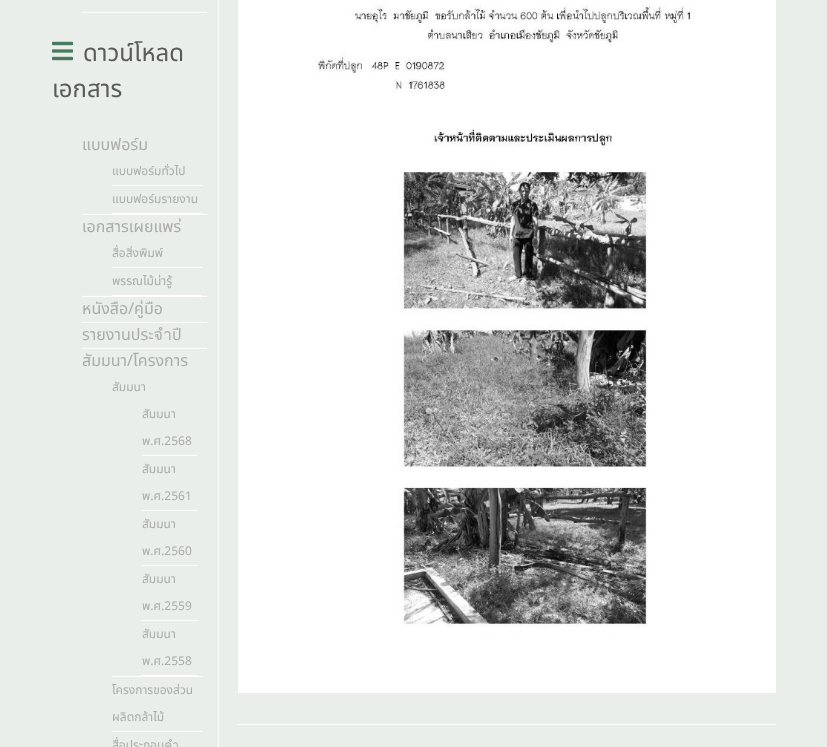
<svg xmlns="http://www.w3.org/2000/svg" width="827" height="747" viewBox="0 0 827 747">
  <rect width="100%" height="100%" fill="#e9eeeb"/>
  <rect x="217" y="0" width="1" height="747" fill="#eeeeee"/>
  <rect x="82" y="11" width="125" height="1" fill="#eeeeee"/>
  <rect x="82" y="12" width="125" height="1" fill="#ffffff"/>
  <rect x="218" y="0" width="1" height="747" fill="#ffffff"/>
  <image x="52" y="41" width="21" height="20" href="img1.png"/>
  <text x="83" y="61" font-family="Noto Sans Thai" font-size="24" fill="#5a5a5a">ดาวน์โหลด</text>
  <text x="52" y="97" font-family="Noto Sans Thai" font-size="24" fill="#5a5a5a">เอกสาร</text>
  <rect x="82" y="213" width="125" height="1" fill="#eeeeee"/>
  <text x="82" y="150" font-family="Noto Sans Thai" font-size="16" fill="#ababab">แบบฟอร์ม</text>
  <rect x="112" y="184" width="90" height="1" fill="#eeeeee"/>
  <text x="112" y="175" font-family="Noto Sans Thai" font-size="12" fill="#ababab">แบบฟอร์มทั่วไป</text>
  <rect x="112" y="185" width="90" height="1" fill="#ffffff"/>
  <rect x="112" y="212" width="90" height="1" fill="#eeeeee"/>
  <text x="112" y="203" font-family="Noto Sans Thai" font-size="12" fill="#ababab">แบบฟอร์มรายงาน</text>
  <rect x="112" y="213" width="90" height="1" fill="#ffffff"/>
  <rect x="82" y="214" width="125" height="1" fill="#ffffff"/>
  <rect x="82" y="295" width="125" height="1" fill="#eeeeee"/>
  <text x="82" y="232" font-family="Noto Sans Thai" font-size="16" fill="#ababab">เอกสารเผยแพร่</text>
  <rect x="112" y="266" width="90" height="1" fill="#eeeeee"/>
  <text x="112" y="257" font-family="Noto Sans Thai" font-size="12" fill="#ababab">สื่อสิ่งพิมพ์</text>
  <rect x="112" y="267" width="90" height="1" fill="#ffffff"/>
  <rect x="112" y="294" width="90" height="1" fill="#eeeeee"/>
  <text x="112" y="285" font-family="Noto Sans Thai" font-size="12" fill="#ababab">พรรณไม้น่ารู้</text>
  <rect x="112" y="295" width="90" height="1" fill="#ffffff"/>
  <rect x="82" y="296" width="125" height="1" fill="#ffffff"/>
  <rect x="82" y="321" width="125" height="1" fill="#eeeeee"/>
  <text x="82" y="314" font-family="Noto Sans Thai" font-size="16" fill="#ababab">หนังสือ/คู่มือ</text>
  <rect x="82" y="322" width="125" height="1" fill="#ffffff"/>
  <rect x="82" y="347" width="125" height="1" fill="#eeeeee"/>
  <text x="82" y="340" font-family="Noto Sans Thai" font-size="16" fill="#ababab">รายงานประจำปี</text>
  <rect x="82" y="348" width="125" height="1" fill="#ffffff"/>
  <text x="82" y="366" font-family="Noto Sans Thai" font-size="16" fill="#ababab">สัมมนา/โครงการ</text>
  <rect x="112" y="675" width="90" height="1" fill="#eeeeee"/>
  <text x="112" y="391" font-family="Noto Sans Thai" font-size="12" fill="#ababab">สัมมนา</text>
  <rect x="142" y="454" width="55" height="1" fill="#eeeeee"/>
  <text x="142" y="418" font-family="Noto Sans Thai" font-size="12" fill="#ababab">สัมมนา</text>
  <text x="142" y="445" font-family="Noto Sans Thai" font-size="12" fill="#ababab">พ.ศ.2568</text>
  <rect x="142" y="455" width="55" height="1" fill="#ffffff"/>
  <rect x="142" y="509" width="55" height="1" fill="#eeeeee"/>
  <text x="142" y="473" font-family="Noto Sans Thai" font-size="12" fill="#ababab">สัมมนา</text>
  <text x="142" y="500" font-family="Noto Sans Thai" font-size="12" fill="#ababab">พ.ศ.2561</text>
  <rect x="142" y="510" width="55" height="1" fill="#ffffff"/>
  <rect x="142" y="564" width="55" height="1" fill="#eeeeee"/>
  <text x="142" y="528" font-family="Noto Sans Thai" font-size="12" fill="#ababab">สัมมนา</text>
  <text x="142" y="555" font-family="Noto Sans Thai" font-size="12" fill="#ababab">พ.ศ.2560</text>
  <rect x="142" y="565" width="55" height="1" fill="#ffffff"/>
  <rect x="142" y="619" width="55" height="1" fill="#eeeeee"/>
  <text x="142" y="583" font-family="Noto Sans Thai" font-size="12" fill="#ababab">สัมมนา</text>
  <text x="142" y="610" font-family="Noto Sans Thai" font-size="12" fill="#ababab">พ.ศ.2559</text>
  <rect x="142" y="620" width="55" height="1" fill="#ffffff"/>
  <rect x="142" y="674" width="55" height="1" fill="#eeeeee"/>
  <text x="142" y="638" font-family="Noto Sans Thai" font-size="12" fill="#ababab">สัมมนา</text>
  <text x="142" y="665" font-family="Noto Sans Thai" font-size="12" fill="#ababab">พ.ศ.2558</text>
  <rect x="142" y="675" width="55" height="1" fill="#ffffff"/>
  <rect x="112" y="676" width="90" height="1" fill="#ffffff"/>
  <rect x="112" y="730" width="90" height="1" fill="#eeeeee"/>
  <text x="112" y="694" font-family="Noto Sans Thai" font-size="12" fill="#ababab">โครงการของส่วน</text>
  <text x="112" y="721" font-family="Noto Sans Thai" font-size="12" fill="#ababab">ผลิตกล้าไม้</text>
  <rect x="112" y="731" width="90" height="1" fill="#ffffff"/>
  <text x="112" y="749" font-family="Noto Sans Thai" font-size="12" fill="#ababab">สื่อประกอบคำ</text>
  <image x="238" y="0" width="538" height="693" href="img2.png"/>
  <rect x="238" y="723" width="538" height="1" fill="#eeeeee"/>
  <rect x="238" y="724" width="538" height="1" fill="#ffffff"/>
</svg>
